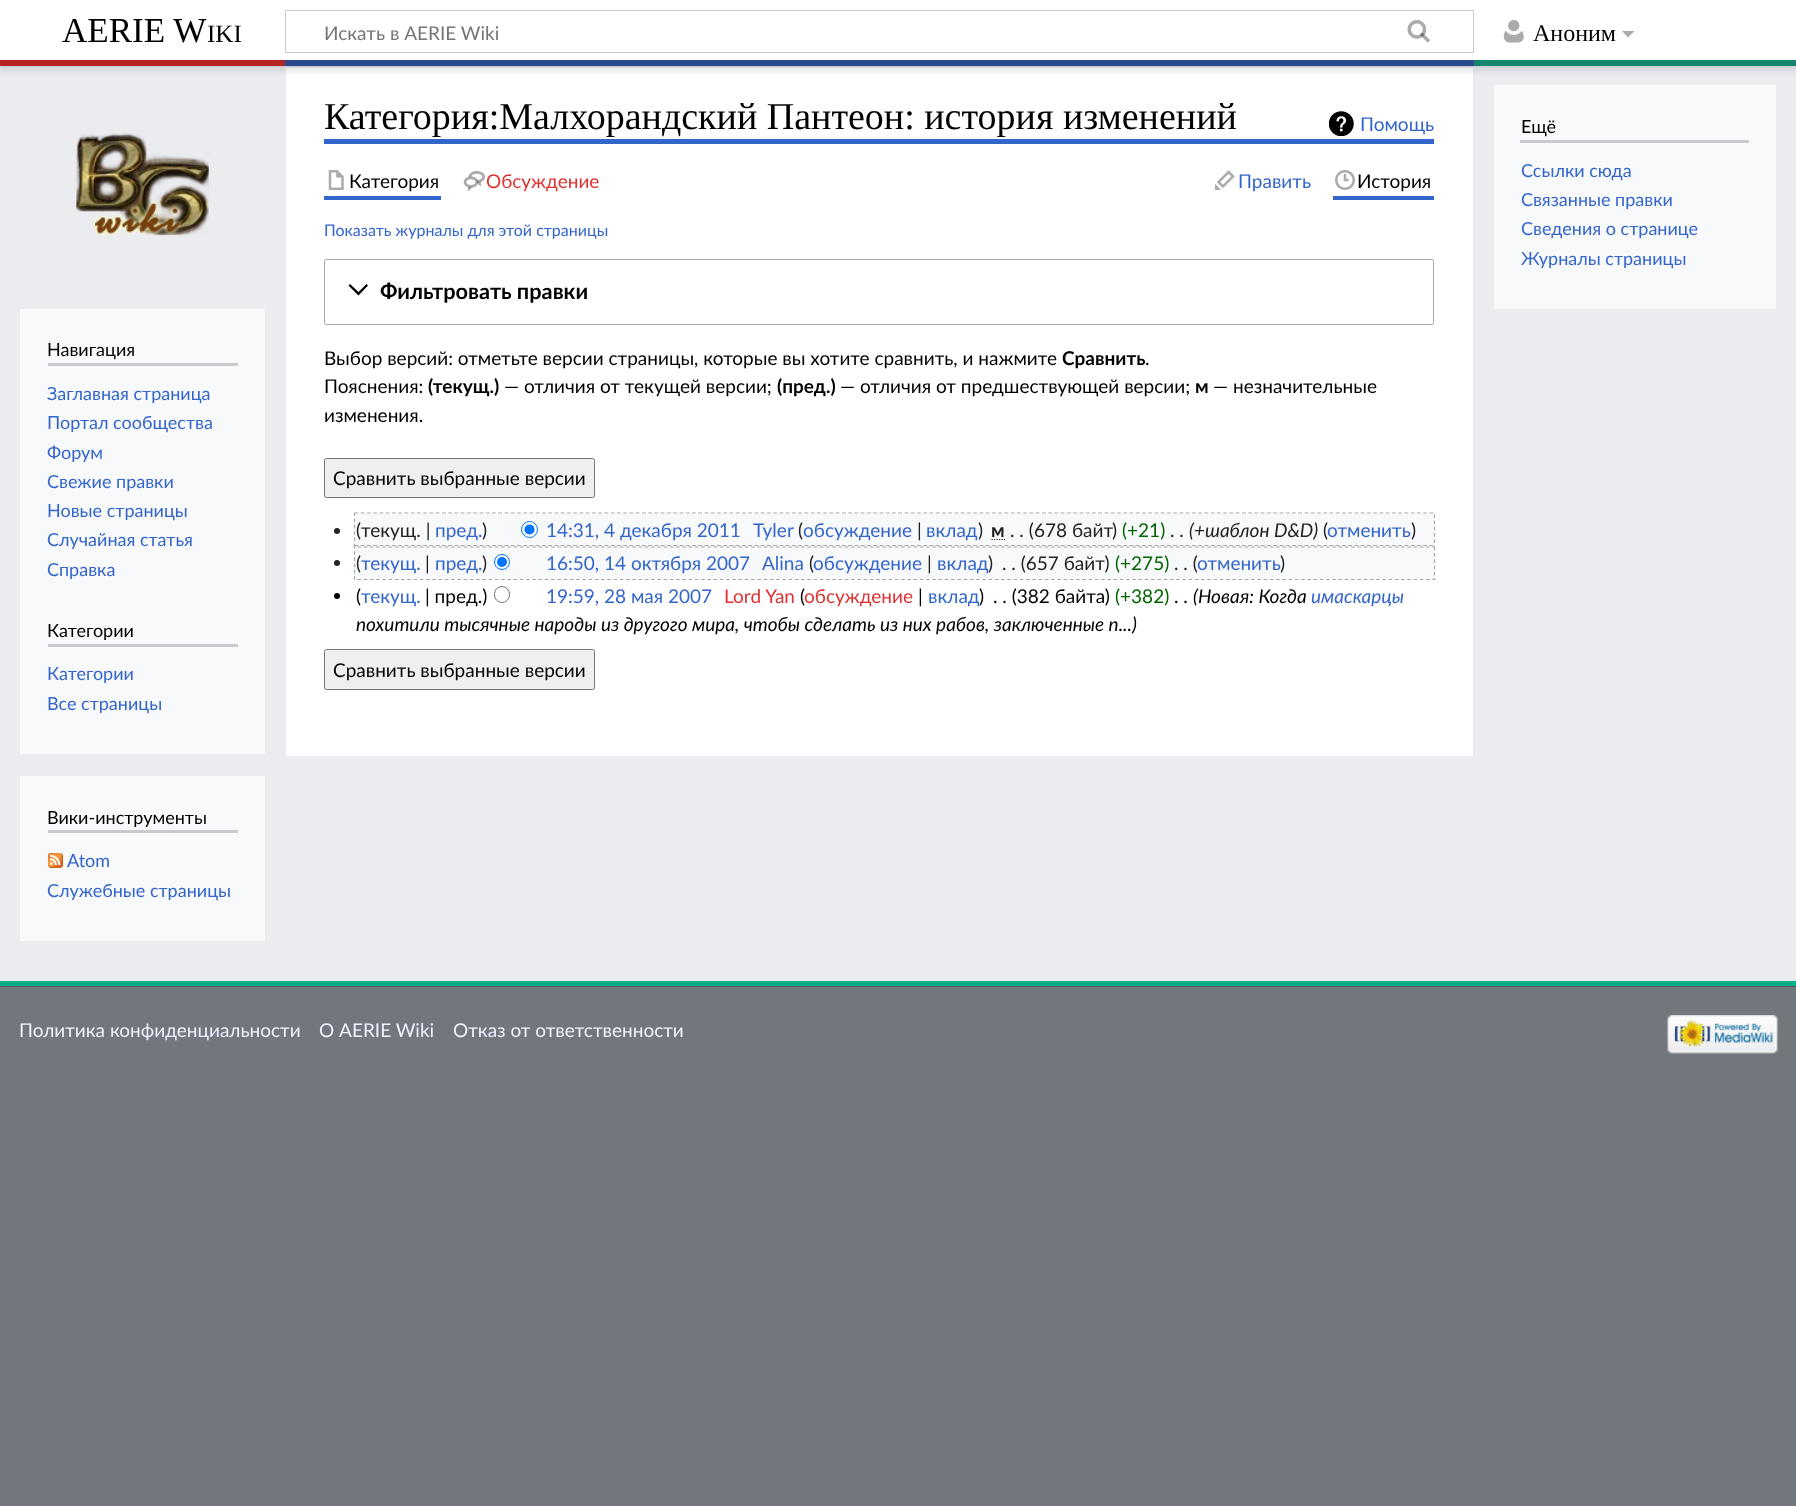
<svg xmlns="http://www.w3.org/2000/svg" width="1796" height="1506" viewBox="0 0 1796 1506">
  <defs>
    <filter id="blur1" x="-50%" y="-200%" width="200%" height="500%"><feGaussianBlur stdDeviation="1"/></filter>
    <filter id="blur2" x="-50%" y="-200%" width="200%" height="500%"><feGaussianBlur stdDeviation="2"/></filter>
  </defs>
  <rect width="100%" height="100%" fill="#72777d"/>
  <rect x="0" y="66" width="1796" height="915" fill="#eaecf0"/>
  <rect x="286" y="68" width="1187" height="688" fill="#ffffff"/>
  <rect x="0" y="60" width="1796" height="6" fill="#000000" fill-opacity="0.2" filter="url(#blur1)"/>
  <rect x="-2" y="61" width="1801" height="12" fill="#000000" fill-opacity="0.07" filter="url(#blur2)"/>
  <rect x="0" y="0" width="1796" height="60" fill="#ffffff"/>
  <text x="62" y="42" font-family="Liberation Serif" font-size="35" fill="#000000">AERIE W</text>
  <text x="207" y="42" font-family="Liberation Serif" font-size="25" fill="#000000">IKI</text>
  <rect x="285.5" y="10.5" width="1188" height="42" fill="none" stroke="#c8ccd1"/>
  <text x="324" y="40" font-family="Lato" font-size="19" fill="#757575">Искать в AERIE Wiki</text>
  <image x="1407" y="20" width="23" height="23" href="img1.png"/>
  <image x="1503" y="20" width="21" height="23" href="img2.png"/>
  <text x="1533" y="41" font-family="Liberation Serif" font-size="24" fill="#000000">Аноним</text>
  <path d="M1634.5 31L1628 37.5L1622 31Z" fill="#ababab"/>
  <rect x="0" y="60" width="285" height="6" fill="#b32424"/>
  <rect x="285" y="60" width="1189" height="6" fill="#2a4b8d"/>
  <rect x="1474" y="60" width="322" height="6" fill="#14866d"/>
  <rect x="0" y="981" width="1796" height="5" fill="#00af89"/>
  <rect x="324" y="139" width="1110" height="5" fill="#3366cc"/>
  <text x="324" y="129" font-family="Liberation Serif" font-size="38" fill="#000000">Категория:Малхорандский Пантеон: история изменений</text>
  <image x="1329" y="111" width="25" height="25" href="img3.png"/>
  <text x="1360" y="131" font-family="Lato" font-size="19" fill="#3366cc">Помощь</text>
  <rect x="324" y="196" width="117" height="4" fill="#3366cc"/>
  <image x="328" y="170" width="16" height="20" href="img4.png"/>
  <text x="349" y="188" font-family="Lato" font-size="19" fill="#000000">Категория</text>
  <image x="463" y="171" width="22" height="21" href="img5.png"/>
  <text x="486" y="188" font-family="Lato" font-size="19" fill="#dd3333">Обсуждение</text>
  <image x="1215" y="170" width="20" height="20" href="img6.png"/>
  <text x="1238" y="188" font-family="Lato" font-size="19" fill="#3366cc">Править</text>
  <rect x="1333" y="196" width="101" height="4" fill="#3366cc"/>
  <image x="1335" y="170" width="20" height="20" href="img7.png"/>
  <text x="1357" y="188" font-family="Lato" font-size="19" fill="#000000">История</text>
  <text x="324" y="236" font-family="Lato" font-size="16" fill="#3366cc">Показать журналы для этой страницы</text>
  <rect x="324.5" y="259.5" width="1109" height="65" rx="2" fill="none" stroke="#a2a9b1"/>
  <path d="M366.5 284L358.5 292L350 284L348.5 285.5L358.5 295.5L368 285.5Z" fill="#000000"/>
  <text x="380" y="299" font-family="Lato" font-size="21.75" font-weight="bold" fill="#000000">Фильтровать правки</text>
  <text x="324" y="365" font-family="Lato" font-size="19" fill="#000000">Выбор версий: отметьте версии страницы, которые вы хотите сравнить, и нажмите</text>
  <text x="1062" y="365" font-family="Lato" font-size="19" font-weight="bold" fill="#000000">Сравнить</text>
  <text x="1145" y="365" font-family="Lato" font-size="19" fill="#000000">.</text>
  <text x="324" y="393" font-family="Lato" font-size="19" fill="#000000">Пояснения:</text>
  <text x="428" y="393" font-family="Lato" font-size="19" font-weight="bold" fill="#000000">(текущ.)</text>
  <text x="504" y="393" font-family="Lato" font-size="19" fill="#000000">— отличия от текущей версии;</text>
  <text x="777" y="393" font-family="Lato" font-size="19" font-weight="bold" fill="#000000">(пред.)</text>
  <text x="840" y="393" font-family="Lato" font-size="19" fill="#000000">— отличия от предшествующей версии;</text>
  <text x="1195" y="393" font-family="Lato" font-size="19" font-weight="bold" fill="#000000">м</text>
  <text x="1213" y="393" font-family="Lato" font-size="19" fill="#000000">— незначительные</text>
  <text x="324" y="422" font-family="Lato" font-size="19" fill="#000000">изменения.</text>
  <rect x="324.5" y="458.5" width="270" height="39" rx="2" fill="#efefef" stroke="#767676"/>
  <text x="333" y="485" font-family="Lato" font-size="19" fill="#000000">Сравнить выбранные версии</text>
  <rect x="355" y="514" width="1079" height="65" fill="#f8f9fa"/>
  <text x="356" y="537" font-family="Lato" font-size="19" fill="#222222">(</text>
  <text x="361" y="537" font-family="Lato" font-size="19" fill="#222222">текущ. |</text>
  <text x="435" y="537" font-family="Lato" font-size="19" fill="#3366cc">пред.</text>
  <text x="482" y="537" font-family="Lato" font-size="19" fill="#222222">)</text>
  <circle cx="529.5" cy="529.5" r="8" fill="#ffffff" stroke="#0075ff"/>
  <circle cx="529.5" cy="529.5" r="5" fill="#0075ff"/>
  <text x="546" y="537" font-family="Lato" font-size="19" fill="#3366cc">14:31, 4 декабря 2011</text>
  <text x="753" y="537" font-family="Lato" font-size="19" fill="#3366cc">Tyler</text>
  <text x="798" y="537" font-family="Lato" font-size="19" fill="#222222">(</text>
  <text x="803" y="537" font-family="Lato" font-size="19" fill="#3366cc">обсуждение</text>
  <text x="917" y="537" font-family="Lato" font-size="19" fill="#222222">|</text>
  <text x="926" y="537" font-family="Lato" font-size="19" fill="#3366cc">вклад</text>
  <text x="978" y="537" font-family="Lato" font-size="19" fill="#222222">)</text>
  <text x="991" y="537" font-family="Lato" font-size="19" font-weight="bold" fill="#222222">м</text>
  <path d="M991.5 539.5H1005" fill="none" stroke="#222222" stroke-width="1.2" stroke-dasharray="1.25 1.25"/>
  <text x="1010" y="537" font-family="Lato" font-size="19" fill="#222222">. . (</text>
  <text x="1034" y="537" font-family="Lato" font-size="19" fill="#222222">678 байт</text>
  <text x="1112" y="537" font-family="Lato" font-size="19" fill="#222222">)</text>
  <text x="1122" y="537" font-family="Lato" font-size="19" fill="#006400">(+21)</text>
  <text x="1189" y="537" font-family="Lato" font-size="19" font-style="italic" fill="#222222">(+шаблон D&amp;D)</text>
  <text x="1323" y="537" font-family="Lato" font-size="19" fill="#222222">(</text>
  <text x="1327" y="537" font-family="Lato" font-size="19" fill="#3366cc">отменить</text>
  <text x="1411" y="537" font-family="Lato" font-size="19" fill="#222222">)</text>
  <text x="1170" y="537" font-family="Lato" font-size="19" fill="#222222">. .</text>
  <path d="M354.5 513H1434.5V547H354.5Z" fill="none" stroke="#a2a9b1" stroke-width="1.2" stroke-dasharray="3.75 2.5"/>
  <circle cx="337" cy="531" r="3" fill="#222222"/>
  <text x="356" y="570" font-family="Lato" font-size="19" fill="#222222">(</text>
  <text x="361" y="570" font-family="Lato" font-size="19" fill="#3366cc">текущ.</text>
  <text x="425" y="570" font-family="Lato" font-size="19" fill="#222222">|</text>
  <text x="435" y="570" font-family="Lato" font-size="19" fill="#3366cc">пред.</text>
  <text x="482" y="570" font-family="Lato" font-size="19" fill="#222222">)</text>
  <circle cx="502" cy="562" r="7.5" fill="#ffffff" stroke="#0075ff"/>
  <circle cx="502" cy="562" r="5" fill="#0075ff"/>
  <text x="546" y="570" font-family="Lato" font-size="19" fill="#3366cc">16:50, 14 октября 2007</text>
  <text x="762" y="570" font-family="Lato" font-size="19" fill="#3366cc">Alina</text>
  <text x="809" y="570" font-family="Lato" font-size="19" fill="#222222">(</text>
  <text x="813" y="570" font-family="Lato" font-size="19" fill="#3366cc">обсуждение</text>
  <text x="927" y="570" font-family="Lato" font-size="19" fill="#222222">|</text>
  <text x="937" y="570" font-family="Lato" font-size="19" fill="#3366cc">вклад</text>
  <text x="988" y="570" font-family="Lato" font-size="19" fill="#222222">)</text>
  <text x="1002" y="570" font-family="Lato" font-size="19" fill="#222222">. . (657 байт)</text>
  <text x="1115" y="570" font-family="Lato" font-size="19" fill="#006400">(+275)</text>
  <text x="1174" y="570" font-family="Lato" font-size="19" fill="#222222">. . (</text>
  <text x="1197" y="570" font-family="Lato" font-size="19" fill="#3366cc">отменить</text>
  <text x="1280" y="570" font-family="Lato" font-size="19" fill="#222222">)</text>
  <path d="M354.5 545.5H1434.5V579.5H354.5Z" fill="none" stroke="#a2a9b1" stroke-width="1.2" stroke-dasharray="3.75 2.5"/>
  <circle cx="337" cy="563" r="3" fill="#222222"/>
  <circle cx="337" cy="596" r="3" fill="#000000"/>
  <text x="356" y="603" font-family="Lato" font-size="19" fill="#000000">(</text>
  <text x="361" y="603" font-family="Lato" font-size="19" fill="#3366cc">текущ.</text>
  <text x="425" y="603" font-family="Lato" font-size="19" fill="#000000">| пред.)</text>
  <rect x="494.5" y="586.5" width="15" height="16" rx="7.5" fill="none" stroke="#767676"/>
  <text x="546" y="603" font-family="Lato" font-size="19" fill="#3366cc">19:59, 28 мая 2007</text>
  <text x="724" y="603" font-family="Lato" font-size="19" fill="#dd3333">Lord Yan</text>
  <text x="800" y="603" font-family="Lato" font-size="19" fill="#000000">(</text>
  <text x="804" y="603" font-family="Lato" font-size="19" fill="#dd3333">обсуждение</text>
  <text x="918" y="603" font-family="Lato" font-size="19" fill="#000000">|</text>
  <text x="928" y="603" font-family="Lato" font-size="19" fill="#3366cc">вклад</text>
  <text x="979" y="603" font-family="Lato" font-size="19" fill="#000000">)</text>
  <text x="993" y="603" font-family="Lato" font-size="19" fill="#000000">. . (382 байта)</text>
  <text x="1115" y="603" font-family="Lato" font-size="19" fill="#006400">(+382)</text>
  <text x="1174" y="603" font-family="Lato" font-size="19" fill="#000000">. .</text>
  <text x="1193" y="603" font-family="Lato" font-size="19" font-style="italic" fill="#000000">(Новая: Когда</text>
  <text x="1311" y="603" font-family="Lato" font-size="19" font-style="italic" fill="#3366cc">имаскарцы</text>
  <text x="356" y="631" font-family="Lato" font-size="19" font-style="italic" fill="#000000">похитили тысячные народы из другого мира, чтобы сделать из них рабов, заключенные п...)</text>
  <rect x="324.5" y="649.5" width="270" height="40" rx="2" fill="#efefef" stroke="#767676"/>
  <text x="333" y="677" font-family="Lato" font-size="19" fill="#000000">Сравнить выбранные версии</text>
  <rect x="1494" y="85" width="282" height="224" fill="#f8f9fa"/>
  <rect x="1520" y="140" width="229" height="3" fill="#c8ccd1"/>
  <text x="1521" y="133" font-family="Lato" font-size="18" fill="#000000">Ещё</text>
  <text x="1521" y="177" font-family="Lato" font-size="18" fill="#3366cc">Ссылки сюда</text>
  <text x="1521" y="206" font-family="Lato" font-size="18" fill="#3366cc">Связанные правки</text>
  <text x="1521" y="235" font-family="Lato" font-size="18" fill="#3366cc">Сведения о странице</text>
  <text x="1521" y="265" font-family="Lato" font-size="18" fill="#3366cc">Журналы страницы</text>
  <image x="76" y="133" width="133" height="104" href="img8.png"/>
  <rect x="20" y="309" width="245" height="445" fill="#f8f9fa"/>
  <rect x="48" y="363" width="190" height="3" fill="#c8ccd1"/>
  <text x="47" y="356" font-family="Lato" font-size="18" fill="#000000">Навигация</text>
  <text x="47" y="400" font-family="Lato" font-size="18" fill="#3366cc">Заглавная страница</text>
  <text x="47" y="429" font-family="Lato" font-size="18" fill="#3366cc">Портал сообщества</text>
  <text x="47" y="459" font-family="Lato" font-size="18" fill="#3366cc">Форум</text>
  <text x="47" y="488" font-family="Lato" font-size="18" fill="#3366cc">Свежие правки</text>
  <text x="47" y="517" font-family="Lato" font-size="18" fill="#3366cc">Новые страницы</text>
  <text x="47" y="546" font-family="Lato" font-size="18" fill="#3366cc">Случайная статья</text>
  <text x="47" y="576" font-family="Lato" font-size="18" fill="#3366cc">Справка</text>
  <rect x="48" y="644" width="190" height="3" fill="#c8ccd1"/>
  <text x="47" y="637" font-family="Lato" font-size="18" fill="#000000">Категории</text>
  <text x="47" y="680" font-family="Lato" font-size="18" fill="#3366cc">Категории</text>
  <text x="47" y="710" font-family="Lato" font-size="18" fill="#3366cc">Все страницы</text>
  <rect x="20" y="776" width="245" height="165" fill="#f8f9fa"/>
  <rect x="48" y="830" width="190" height="3" fill="#c8ccd1"/>
  <text x="47" y="824" font-family="Lato" font-size="18" fill="#000000">Вики-инструменты</text>
  <image x="48" y="853" width="15" height="15" href="img9.png"/>
  <text x="67" y="867" font-family="Lato" font-size="18" fill="#3366cc">Atom</text>
  <text x="47" y="897" font-family="Lato" font-size="18" fill="#3366cc">Служебные страницы</text>
  <rect x="0" y="986" width="1796" height="1" fill="#54595d"/>
  <text x="19" y="1037" font-family="Lato" font-size="19" fill="#eaf3ff">Политика конфиденциальности</text>
  <text x="319" y="1037" font-family="Lato" font-size="19" fill="#eaf3ff">О AERIE Wiki</text>
  <text x="453" y="1037" font-family="Lato" font-size="19" fill="#eaf3ff">Отказ от ответственности</text>
  <image x="1667" y="1015" width="111" height="39" href="img10.png"/>
</svg>
